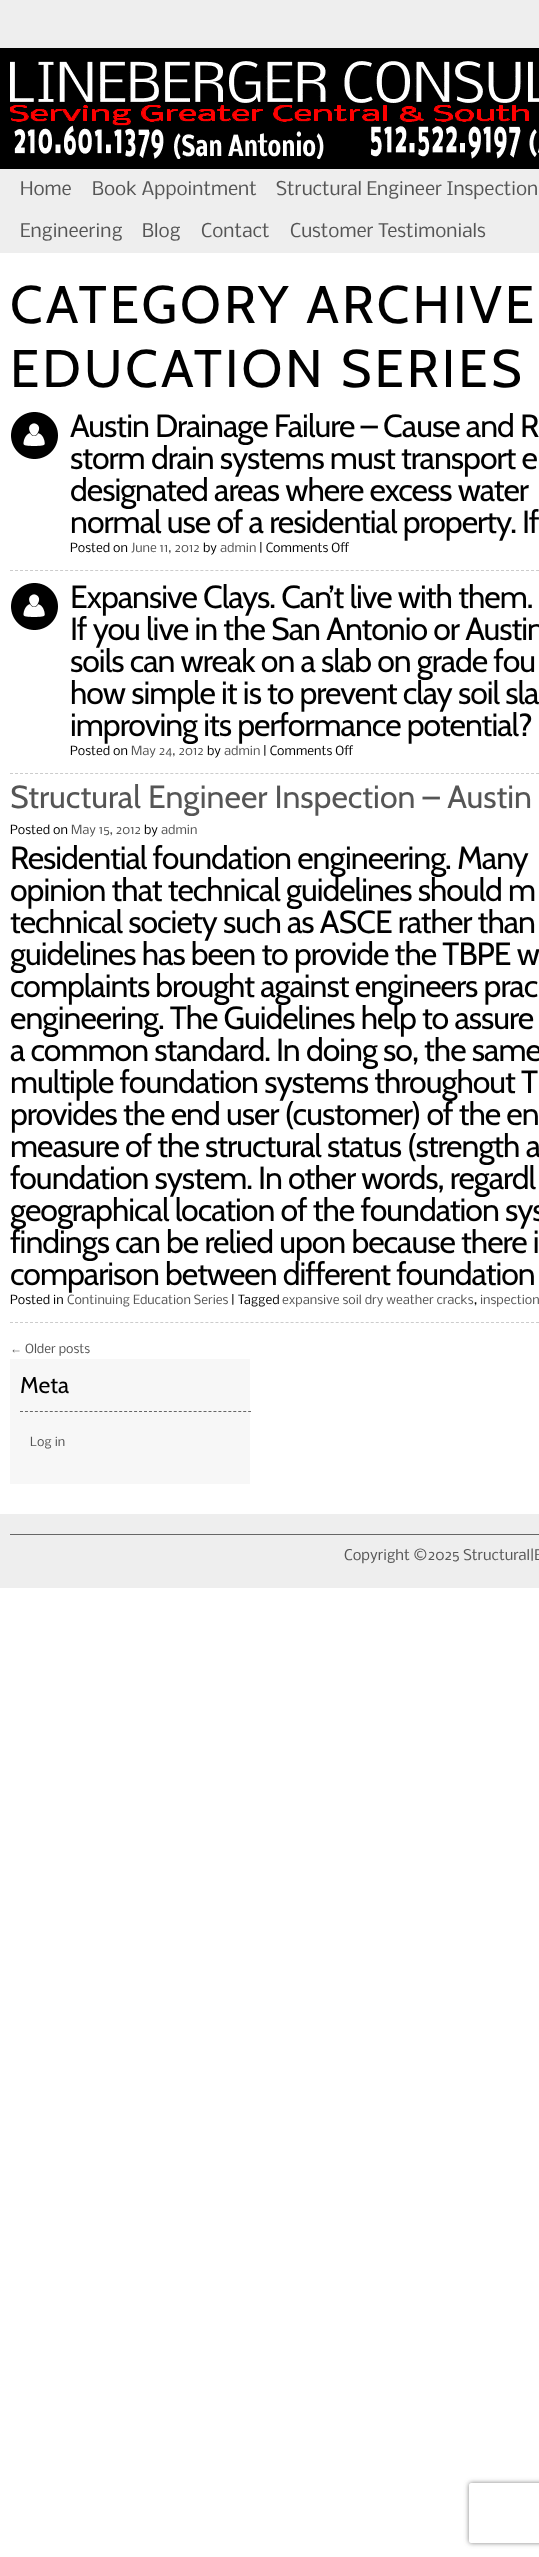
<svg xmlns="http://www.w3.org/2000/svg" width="539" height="2557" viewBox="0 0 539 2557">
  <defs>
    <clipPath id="clip1"><path d="M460 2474H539V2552H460ZM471 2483H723C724 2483 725 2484 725 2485V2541C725 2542 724 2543 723 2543H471C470 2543 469 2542 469 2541V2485C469 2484 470 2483 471 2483Z" clip-rule="evenodd"/></clipPath>
    <filter id="blur1" x="-50%" y="-200%" width="200%" height="500%"><feGaussianBlur stdDeviation="2.5"/></filter>
  </defs>
  <rect width="100%" height="100%" fill="#ffffff"/>
  <rect x="0" y="0" width="539" height="48" fill="#eeeeee"/>
  <rect x="0" y="48" width="539" height="121" fill="#000000"/>
  <image x="10" y="61" width="529" height="98" href="img1.png"/>
  <rect x="0" y="169" width="539" height="84" fill="#eeeeee"/>
  <text x="20" y="195" font-family="Nobile" font-size="18" fill="#555555">Home</text>
  <text x="92" y="195" font-family="Nobile" font-size="18" fill="#555555">Book Appointment</text>
  <text x="276" y="195" font-family="Nobile" font-size="18" fill="#555555">Structural Engineer Inspection</text>
  <text x="20" y="237" font-family="Nobile" font-size="18" fill="#555555">Engineering</text>
  <text x="142" y="237" font-family="Nobile" font-size="18" fill="#555555">Blog</text>
  <text x="201" y="237" font-family="Nobile" font-size="18" fill="#555555">Contact</text>
  <text x="290" y="237" font-family="Nobile" font-size="18" fill="#555555">Customer Testimonials</text>
  <text x="10" y="323" font-family="Cabin" font-size="53" letter-spacing="3" fill="#000000">CATEGORY ARCHIVE</text>
  <text x="10" y="387" font-family="Cabin" font-size="53" letter-spacing="3" fill="#000000">EDUCATION SERIES</text>
  <image x="11" y="412" width="47" height="47" href="img2.png"/>
  <path d="M10 570.5H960" fill="none" stroke="#cccccc" stroke-dasharray="3 2.01"/>
  <text x="70" y="437" font-family="Cabin" font-size="32" letter-spacing="-1" fill="#000000">Austin Drainage Failure – Cause and R</text>
  <text x="70" y="469" font-family="Cabin" font-size="32" letter-spacing="-1" fill="#000000">storm drain systems must transport e</text>
  <text x="70" y="501" font-family="Cabin" font-size="32" letter-spacing="-1" fill="#000000">designated areas where excess water</text>
  <text x="70" y="533" font-family="Cabin" font-size="32" letter-spacing="-1" fill="#000000">normal use of a residential property. If</text>
  <text x="70" y="552" font-family="Nobile" font-size="12" fill="#000000">Posted on</text>
  <text x="131" y="552" font-family="Nobile" font-size="12" fill="#555555">June 11, 2012</text>
  <text x="203" y="552" font-family="Nobile" font-size="12" fill="#000000">by</text>
  <text x="220" y="552" font-family="Nobile" font-size="12" fill="#555555">admin</text>
  <text x="259" y="552" font-family="Nobile" font-size="12" fill="#000000">| Comments Off</text>
  <image x="11" y="583" width="47" height="47" href="img2.png"/>
  <path d="M10 773.5H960" fill="none" stroke="#cccccc" stroke-dasharray="3 2.01"/>
  <text x="70" y="608" font-family="Cabin" font-size="32" letter-spacing="-1" fill="#000000">Expansive Clays. Can’t live with them.</text>
  <text x="70" y="640" font-family="Cabin" font-size="32" letter-spacing="-1" fill="#000000">If you live in the San Antonio or Austin</text>
  <text x="70" y="672" font-family="Cabin" font-size="32" letter-spacing="-1" fill="#000000">soils can wreak on a slab on grade fou</text>
  <text x="70" y="704" font-family="Cabin" font-size="32" letter-spacing="-1" fill="#000000">how simple it is to prevent clay soil sla</text>
  <text x="70" y="736" font-family="Cabin" font-size="32" letter-spacing="-1" fill="#000000">improving its performance potential?</text>
  <text x="70" y="755" font-family="Nobile" font-size="12" fill="#000000">Posted on</text>
  <text x="131" y="755" font-family="Nobile" font-size="12" fill="#555555">May 24, 2012</text>
  <text x="207" y="755" font-family="Nobile" font-size="12" fill="#000000">by</text>
  <text x="224" y="755" font-family="Nobile" font-size="12" fill="#555555">admin</text>
  <text x="263" y="755" font-family="Nobile" font-size="12" fill="#000000">| Comments Off</text>
  <path d="M10 1322.5H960" fill="none" stroke="#cccccc" stroke-dasharray="3 2.01"/>
  <text x="10" y="808" font-family="Cabin" font-size="32" fill="#555555">Structural Engineer Inspection – Austin</text>
  <text x="10" y="834" font-family="Nobile" font-size="12" fill="#000000">Posted on</text>
  <text x="71" y="834" font-family="Nobile" font-size="12" fill="#555555">May 15, 2012</text>
  <text x="144" y="834" font-family="Nobile" font-size="12" fill="#000000">by</text>
  <text x="161" y="834" font-family="Nobile" font-size="12" fill="#555555">admin</text>
  <text x="10" y="869" font-family="Cabin" font-size="32" letter-spacing="-1" fill="#000000">Residential foundation engineering. Many</text>
  <text x="10" y="901" font-family="Cabin" font-size="32" letter-spacing="-1" fill="#000000">opinion that technical guidelines should m</text>
  <text x="10" y="933" font-family="Cabin" font-size="32" letter-spacing="-1" fill="#000000">technical society such as ASCE rather than</text>
  <text x="10" y="965" font-family="Cabin" font-size="32" letter-spacing="-1" fill="#000000">guidelines has been to provide the TBPE w</text>
  <text x="10" y="997" font-family="Cabin" font-size="32" letter-spacing="-1" fill="#000000">complaints brought against engineers prac</text>
  <text x="10" y="1029" font-family="Cabin" font-size="32" letter-spacing="-1" fill="#000000">engineering. The Guidelines help to assure</text>
  <text x="10" y="1061" font-family="Cabin" font-size="32" letter-spacing="-1" fill="#000000">a common standard. In doing so, the same</text>
  <text x="10" y="1093" font-family="Cabin" font-size="32" letter-spacing="-1" fill="#000000">multiple foundation systems throughout T</text>
  <text x="10" y="1125" font-family="Cabin" font-size="32" letter-spacing="-1" fill="#000000">provides the end user (customer) of the en</text>
  <text x="10" y="1157" font-family="Cabin" font-size="32" letter-spacing="-1" fill="#000000">measure of the structural status (strength a</text>
  <text x="10" y="1189" font-family="Cabin" font-size="32" letter-spacing="-1" fill="#000000">foundation system. In other words, regardl</text>
  <text x="10" y="1221" font-family="Cabin" font-size="32" letter-spacing="-1" fill="#000000">geographical location of the foundation sys</text>
  <text x="10" y="1253" font-family="Cabin" font-size="32" letter-spacing="-1" fill="#000000">findings can be relied upon because there i</text>
  <text x="10" y="1285" font-family="Cabin" font-size="32" letter-spacing="-1" fill="#000000">comparison between different foundation</text>
  <text x="10" y="1304" font-family="Nobile" font-size="12" fill="#000000">Posted in</text>
  <text x="67" y="1304" font-family="Nobile" font-size="12" fill="#555555">Continuing Education Series</text>
  <text x="231" y="1304" font-family="Nobile" font-size="12" fill="#000000">| Tagged</text>
  <text x="282" y="1304" font-family="Nobile" font-size="12" fill="#555555">expansive soil dry weather cracks</text>
  <text x="474" y="1304" font-family="Nobile" font-size="12" fill="#000000">,</text>
  <text x="480" y="1304" font-family="Nobile" font-size="12" fill="#555555">inspection</text>
  <text x="10" y="1353" font-family="Liberation Sans" font-size="12" fill="#555555">←</text>
  <text x="25" y="1353" font-family="Nobile" font-size="12" fill="#555555">Older posts</text>
  <rect x="10" y="1359" width="240" height="125" fill="#f7f7f7"/>
  <path d="M20 1411.5H251" fill="none" stroke="#666666" stroke-dasharray="3 1.96"/>
  <text x="20" y="1393" font-family="Cabin" font-size="23" fill="#000000">Meta</text>
  <text x="30" y="1446" font-family="Nobile" font-size="12" fill="#555555">Log in</text>
  <rect x="0" y="1514" width="539" height="74" fill="#eeeeee"/>
  <rect x="10" y="1534" width="529" height="1" fill="#666666"/>
  <text x="344" y="1560" font-family="Nobile" font-size="14" fill="#555555">Copyright ©2025 Structural|E</text>
  <g clip-path="url(#clip1)">
    <rect x="469" y="2483" width="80" height="60" rx="2" fill="#808080" filter="url(#blur1)"/>
  </g>
</svg>
